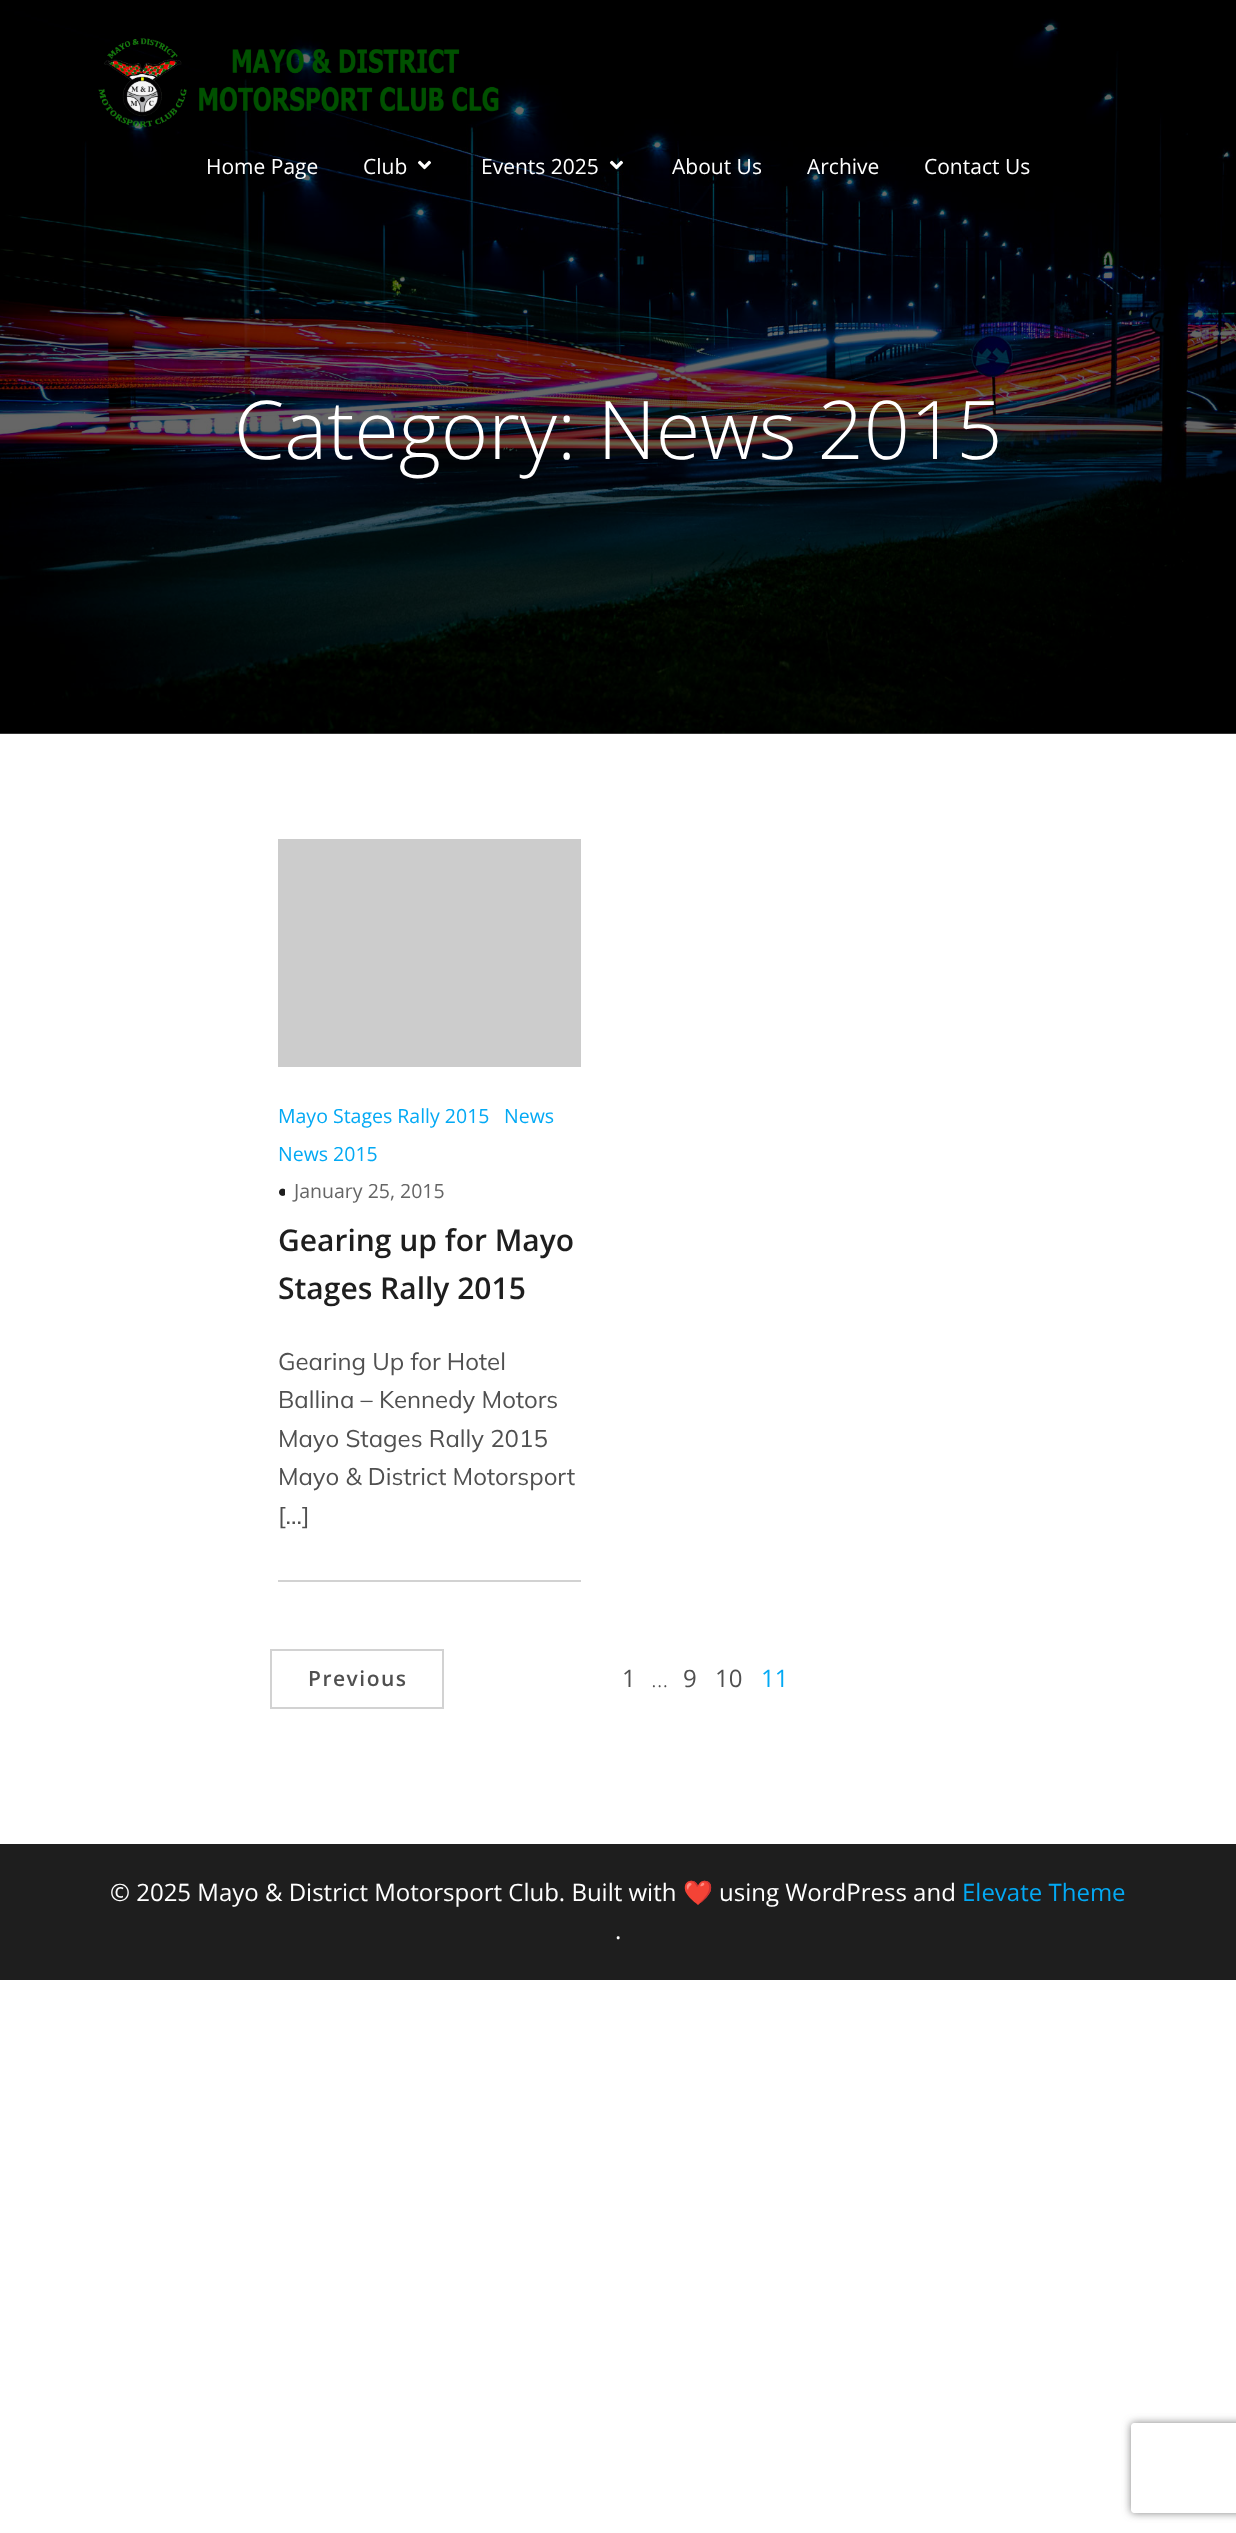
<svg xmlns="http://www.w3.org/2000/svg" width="1236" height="2533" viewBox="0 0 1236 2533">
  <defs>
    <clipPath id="clip1"><path d="M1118 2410H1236V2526H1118ZM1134 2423H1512C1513.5 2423 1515 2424.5 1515 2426V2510C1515 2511.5 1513.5 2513 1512 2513H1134C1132.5 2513 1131 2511.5 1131 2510V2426C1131 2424.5 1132.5 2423 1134 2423Z" clip-rule="evenodd"/></clipPath>
    <filter id="blur1" x="-50%" y="-200%" width="200%" height="500%"><feGaussianBlur stdDeviation="4"/></filter>
  </defs>
  <rect width="100%" height="100%" fill="#ffffff"/>
  <rect x="0" y="733" width="1236" height="1" fill="#666666"/>
  <image x="0" y="0" width="1236" height="734" href="img4.png"/>
  <image x="98" y="38" width="401" height="90" href="img1.png"/>
  <text x="206" y="174" font-family="Open Sans" font-size="21" fill="#ffffff">Home Page</text>
  <text x="363" y="174" font-family="Open Sans" font-size="21" fill="#ffffff">Club</text>
  <image x="417" y="160" width="14" height="10" href="img2.png"/>
  <text x="481" y="174" font-family="Open Sans" font-size="21" fill="#ffffff">Events 2025</text>
  <image x="609" y="160" width="14" height="10" href="img3.png"/>
  <text x="672" y="174" font-family="Open Sans" font-size="21" fill="#ffffff">About Us</text>
  <text x="807" y="174" font-family="Open Sans" font-size="21" fill="#ffffff">Archive</text>
  <text x="924" y="174" font-family="Open Sans" font-size="21" fill="#ffffff">Contact Us</text>
  <text x="234" y="459" font-family="Open Sans" font-size="81" font-weight="300" fill="#ffffff">Category: News 2015</text>
  <rect x="278" y="839" width="303" height="228" fill="#cccccc"/>
  <text x="278" y="1123" font-family="Open Sans" font-size="19.5" fill="#03a9f4">Mayo Stages Rally 2015</text>
  <text x="504" y="1123" font-family="Open Sans" font-size="19.5" fill="#03a9f4">News</text>
  <text x="278" y="1161" font-family="Open Sans" font-size="19.5" fill="#03a9f4">News 2015</text>
  <image x="279" y="1188" width="6" height="8" href="img5.png"/>
  <text x="294" y="1198" font-family="Open Sans" font-size="19.5" fill="#656565">January 25, 2015</text>
  <text x="278" y="1251" font-family="Open Sans" font-size="30" font-weight="600" fill="#1e1e1e">Gearing up for Mayo</text>
  <text x="278" y="1299" font-family="Open Sans" font-size="30" font-weight="600" fill="#1e1e1e">Stages Rally 2015</text>
  <text x="278" y="1370" font-family="Mulish" font-size="24" font-weight="200" fill="#505050">Gearing Up for Hotel</text>
  <text x="278" y="1408" font-family="Mulish" font-size="24" font-weight="200" fill="#505050">Ballina – Kennedy Motors</text>
  <text x="278" y="1447" font-family="Mulish" font-size="24" font-weight="200" fill="#505050">Mayo Stages Rally 2015</text>
  <text x="278" y="1485" font-family="Mulish" font-size="24" font-weight="200" fill="#505050">Mayo &amp; District Motorsport</text>
  <text x="278" y="1524" font-family="Mulish" font-size="24" font-weight="200" fill="#505050">[…]</text>
  <rect x="278" y="1580" width="303" height="2" fill="#d2d2d2"/>
  <rect x="271" y="1650" width="172" height="58" fill="none" stroke="#d2d2d2" stroke-width="2"/>
  <text x="308" y="1686" font-family="Open Sans" font-size="21" font-weight="600" letter-spacing="1.5" fill="#505050">Previous</text>
  <text x="622" y="1687" font-family="Open Sans" font-size="24" fill="#505050">1</text>
  <text x="651" y="1687" font-family="Open Sans" font-size="24" font-weight="300" fill="#505050">…</text>
  <text x="683" y="1687" font-family="Open Sans" font-size="24" fill="#505050">9</text>
  <text x="715" y="1687" font-family="Open Sans" font-size="24" fill="#505050">10</text>
  <text x="761" y="1687" font-family="Open Sans" font-size="24" fill="#03a9f4">11</text>
  <rect x="0" y="1844" width="1236" height="136" fill="#1e1e1e"/>
  <text x="110" y="1901" font-family="Open Sans" font-size="24" fill="#ffffff">© 2025 Mayo &amp; District Motorsport Club. Built with</text>
  <text x="683" y="1901" font-family="Noto Color Emoji" font-size="24" fill="#ffffff">❤️</text>
  <text x="719" y="1901" font-family="Open Sans" font-size="24" fill="#ffffff">using WordPress and</text>
  <text x="962" y="1901" font-family="Open Sans" font-size="24" fill="#03a9f4">Elevate Theme</text>
  <text x="615" y="1939" font-family="Open Sans" font-size="24" fill="#ffffff">.</text>
  <g clip-path="url(#clip1)">
    <rect x="1131" y="2423" width="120" height="90" rx="3" fill="#808080" filter="url(#blur1)"/>
  </g>
</svg>
